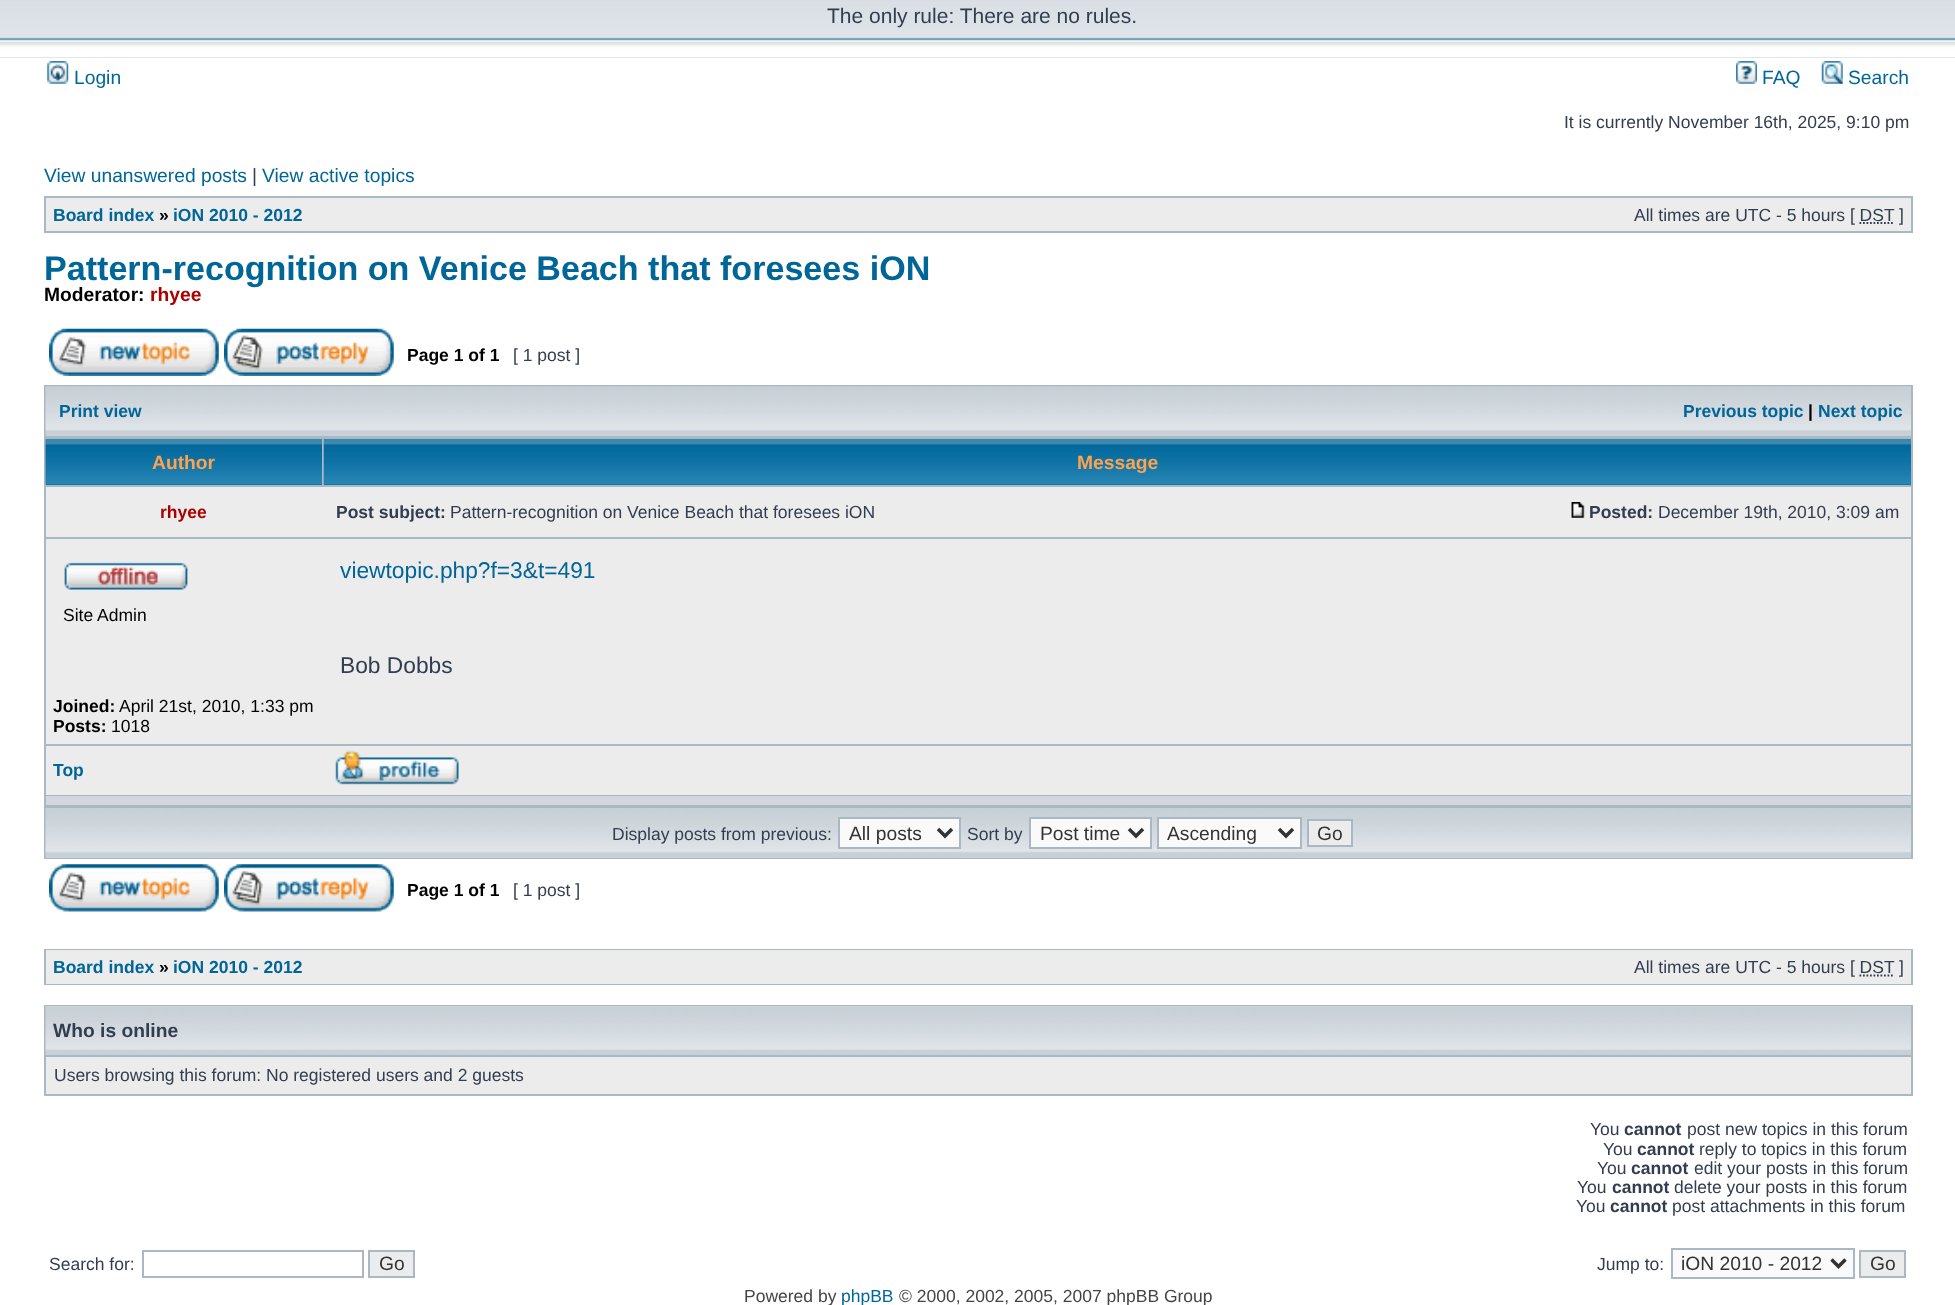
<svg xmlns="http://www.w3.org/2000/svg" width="1955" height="1305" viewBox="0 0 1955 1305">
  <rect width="100%" height="100%" fill="#ffffff"/>
  <rect x="0" y="57" width="1955" height="1" fill="#c1cad2"/>
  <image x="0" y="0" width="1955" height="58" href="img1.png"/>
  <text x="827" y="23" font-family="Liberation Sans" font-size="21" fill="#323d4f">The only rule: There are no rules.</text>
  <image x="47" y="61" width="22" height="23" href="img2.png"/>
  <text x="74" y="84" font-family="Liberation Sans" font-size="19.25" fill="#006597">Login</text>
  <image x="1736" y="61" width="21" height="23" href="img3.png"/>
  <text x="1762" y="84" font-family="Liberation Sans" font-size="19.25" fill="#006597">FAQ</text>
  <image x="1821" y="61" width="22" height="23" href="img4.png"/>
  <text x="1848" y="84" font-family="Liberation Sans" font-size="19.25" fill="#006597">Search</text>
  <text x="1564" y="128" font-family="Liberation Sans" font-size="17.5" fill="#323d4f">It is currently November 16th, 2025, 9:10 pm</text>
  <text x="44" y="182" font-family="Liberation Sans" font-size="19.25" fill="#006597">View unanswered posts</text>
  <text x="252" y="182" font-family="Liberation Sans" font-size="19.25" fill="#323d4f">|</text>
  <text x="262" y="182" font-family="Liberation Sans" font-size="19.25" fill="#006597">View active topics</text>
  <rect x="44" y="196" width="1869" height="37" fill="#a9b8c2"/>
  <rect x="46" y="198" width="1865" height="33" fill="#ececec"/>
  <text x="53" y="221" font-family="Liberation Sans" font-size="17.5" font-weight="bold" fill="#006597">Board index</text>
  <text x="159" y="221" font-family="Liberation Sans" font-size="17.5" font-weight="bold" fill="#000000">»</text>
  <text x="173" y="221" font-family="Liberation Sans" font-size="17.5" font-weight="bold" fill="#006597">iON 2010 - 2012</text>
  <text x="1634" y="221" font-family="Liberation Sans" font-size="17.5" fill="#323d4f">All times are UTC - 5 hours [ DST</text>
  <text x="1899" y="221" font-family="Liberation Sans" font-size="17.5" fill="#323d4f">]</text>
  <path d="M1859.5 223H1894.5" fill="none" stroke="#323d4f" stroke-width="1.8" stroke-dasharray="1.75 1.75"/>
  <text x="44" y="280" font-family="Liberation Sans" font-size="34.1" font-weight="bold" fill="#006597">Pattern-recognition on Venice Beach that foresees iON</text>
  <text x="44" y="301" font-family="Liberation Sans" font-size="19.25" font-weight="bold" fill="#000000">Moderator:</text>
  <text x="150" y="301" font-family="Liberation Sans" font-size="19.25" font-weight="bold" fill="#aa0000">rhyee</text>
  <image x="49" y="328" width="170" height="48" href="img5.png"/>
  <image x="224" y="328" width="170" height="48" href="img6.png"/>
  <text x="407" y="361" font-family="Liberation Sans" font-size="17.5" font-weight="bold" fill="#000000">Page 1 of 1</text>
  <text x="513" y="361" font-family="Liberation Sans" font-size="17.5" fill="#323d4f">[ 1 post ]</text>
  <rect x="44" y="385" width="1869" height="474" fill="#a9b8c2"/>
  <rect x="46" y="435" width="1865" height="1" fill="#c7d0d7"/>
  <image x="45" y="386" width="1866" height="50" href="img7.png"/>
  <text x="59" y="417" font-family="Liberation Sans" font-size="17.5" font-weight="bold" fill="#006597">Print view</text>
  <text x="1683" y="417" font-family="Liberation Sans" font-size="17.5" font-weight="bold" fill="#006597">Previous topic</text>
  <text x="1808" y="417" font-family="Liberation Sans" font-size="17.5" font-weight="bold" fill="#000000">|</text>
  <text x="1818" y="417" font-family="Liberation Sans" font-size="17.5" font-weight="bold" fill="#006597">Next topic</text>
  <rect x="46" y="484" width="276" height="1" fill="#006699"/>
  <image x="45" y="439" width="277" height="46" href="img8.png"/>
  <text x="152" y="469" font-family="Liberation Sans" font-size="19.25" font-weight="bold" fill="#ffa34f">Author</text>
  <rect x="324" y="484" width="1587" height="1" fill="#006699"/>
  <image x="323" y="439" width="1588" height="46" href="img9.png"/>
  <text x="1077" y="469" font-family="Liberation Sans" font-size="19.25" font-weight="bold" fill="#ffa34f">Message</text>
  <rect x="46" y="487" width="1865" height="50" fill="#ececec"/>
  <text x="160" y="518" font-family="Liberation Sans" font-size="17.5" font-weight="bold" fill="#aa0000">rhyee</text>
  <text x="336" y="518" font-family="Liberation Sans" font-size="17.5" font-weight="bold" fill="#323d4f">Post subject:</text>
  <text x="450" y="518" font-family="Liberation Sans" font-size="17.5" fill="#323d4f">Pattern-recognition on Venice Beach that foresees iON</text>
  <image x="1571" y="502" width="14" height="16" href="img10.png"/>
  <text x="1589" y="518" font-family="Liberation Sans" font-size="17.5" font-weight="bold" fill="#323d4f">Posted:</text>
  <text x="1658" y="518" font-family="Liberation Sans" font-size="17.5" fill="#323d4f">December 19th, 2010, 3:09 am</text>
  <rect x="46" y="539" width="1865" height="205" fill="#ececec"/>
  <image x="64" y="562" width="124" height="28" href="img11.png"/>
  <text x="63" y="621" font-family="Liberation Sans" font-size="17.5" fill="#000000">Site Admin</text>
  <text x="53" y="712" font-family="Liberation Sans" font-size="17.5" font-weight="bold" fill="#000000">Joined:</text>
  <text x="119" y="712" font-family="Liberation Sans" font-size="17.5" fill="#000000">April 21st, 2010, 1:33 pm</text>
  <text x="53" y="732" font-family="Liberation Sans" font-size="17.5" font-weight="bold" fill="#000000">Posts:</text>
  <text x="111" y="732" font-family="Liberation Sans" font-size="17.5" fill="#000000">1018</text>
  <text x="340" y="578" font-family="Liberation Sans" font-size="22.75" fill="#006597">viewtopic.php?f=3&amp;t=491</text>
  <text x="340" y="673" font-family="Liberation Sans" font-size="22.75" fill="#323d4f">Bob Dobbs</text>
  <rect x="46" y="746" width="1865" height="49" fill="#ececec"/>
  <text x="53" y="776" font-family="Liberation Sans" font-size="17.5" font-weight="bold" fill="#006597">Top</text>
  <image x="335" y="750" width="124" height="35" href="img12.png"/>
  <rect x="46" y="796" width="1865" height="9" fill="#d1d7dc"/>
  <rect x="46" y="857" width="1865" height="1" fill="#c7d0d7"/>
  <image x="45" y="808" width="1866" height="49" href="img13.png"/>
  <text x="612" y="840" font-family="Liberation Sans" font-size="17.5" fill="#323d4f">Display posts from previous:</text>
  <rect x="839" y="818" width="121" height="30" fill="#fafafa" stroke="#a9b8c2" stroke-width="2"/>
  <path d="M938 829L945 836L952 829" fill="none" stroke="#333333" stroke-width="3.5"/>
  <text x="849" y="840" font-family="Liberation Sans" font-size="19.25" fill="#333333">All posts</text>
  <text x="967" y="840" font-family="Liberation Sans" font-size="17.5" fill="#323d4f">Sort by</text>
  <rect x="1030" y="818" width="121" height="30" fill="#fafafa" stroke="#a9b8c2" stroke-width="2"/>
  <path d="M1129 829L1136 836L1143 829" fill="none" stroke="#333333" stroke-width="3.5"/>
  <text x="1040" y="840" font-family="Liberation Sans" font-size="19.25" fill="#333333">Post time</text>
  <rect x="1158" y="818" width="143" height="30" fill="#fafafa" stroke="#a9b8c2" stroke-width="2"/>
  <path d="M1279 829L1286 836L1293 829" fill="none" stroke="#333333" stroke-width="3.5"/>
  <text x="1167" y="840" font-family="Liberation Sans" font-size="19.25" fill="#333333">Ascending</text>
  <rect x="1308" y="820" width="44" height="26" fill="#ececec" stroke="#a9b8c2" stroke-width="2"/>
  <text x="1317" y="840" font-family="Liberation Sans" font-size="19.25" fill="#333333">Go</text>
  <image x="49" y="864" width="170" height="48" href="img14.png"/>
  <image x="224" y="864" width="170" height="48" href="img15.png"/>
  <text x="407" y="896" font-family="Liberation Sans" font-size="17.5" font-weight="bold" fill="#000000">Page 1 of 1</text>
  <text x="513" y="896" font-family="Liberation Sans" font-size="17.5" fill="#323d4f">[ 1 post ]</text>
  <rect x="44" y="949" width="1869" height="36" fill="#a9b8c2"/>
  <rect x="46" y="950" width="1865" height="34" fill="#ececec"/>
  <text x="53" y="973" font-family="Liberation Sans" font-size="17.5" font-weight="bold" fill="#006597">Board index</text>
  <text x="159" y="973" font-family="Liberation Sans" font-size="17.5" font-weight="bold" fill="#000000">»</text>
  <text x="173" y="973" font-family="Liberation Sans" font-size="17.5" font-weight="bold" fill="#006597">iON 2010 - 2012</text>
  <text x="1634" y="973" font-family="Liberation Sans" font-size="17.5" fill="#323d4f">All times are UTC - 5 hours [ DST</text>
  <text x="1899" y="973" font-family="Liberation Sans" font-size="17.5" fill="#323d4f">]</text>
  <path d="M1859.5 975.5H1894.5" fill="none" stroke="#323d4f" stroke-width="1.8" stroke-dasharray="1.75 1.75"/>
  <rect x="44" y="1005" width="1869" height="91" fill="#a9b8c2"/>
  <image x="45" y="1006" width="1866" height="49" href="img16.png"/>
  <text x="53" y="1037" font-family="Liberation Sans" font-size="19.25" font-weight="bold" fill="#323d4f">Who is online</text>
  <rect x="46" y="1057" width="1865" height="37" fill="#ececec"/>
  <text x="54" y="1081" font-family="Liberation Sans" font-size="17.5" fill="#323d4f">Users browsing this forum: No registered users and 2 guests</text>
  <text x="1590" y="1135" font-family="Liberation Sans" font-size="17.5" fill="#323d4f">You</text>
  <text x="1624" y="1135" font-family="Liberation Sans" font-size="17.5" font-weight="bold" fill="#323d4f">cannot</text>
  <text x="1687" y="1135" font-family="Liberation Sans" font-size="17.5" fill="#323d4f">post new topics in this forum</text>
  <text x="1603" y="1155" font-family="Liberation Sans" font-size="17.5" fill="#323d4f">You</text>
  <text x="1637" y="1155" font-family="Liberation Sans" font-size="17.5" font-weight="bold" fill="#323d4f">cannot</text>
  <text x="1699" y="1155" font-family="Liberation Sans" font-size="17.5" fill="#323d4f">reply to topics in this forum</text>
  <text x="1597" y="1174" font-family="Liberation Sans" font-size="17.5" fill="#323d4f">You</text>
  <text x="1631" y="1174" font-family="Liberation Sans" font-size="17.5" font-weight="bold" fill="#323d4f">cannot</text>
  <text x="1694" y="1174" font-family="Liberation Sans" font-size="17.5" fill="#323d4f">edit your posts in this forum</text>
  <text x="1577" y="1193" font-family="Liberation Sans" font-size="17.5" fill="#323d4f">You</text>
  <text x="1612" y="1193" font-family="Liberation Sans" font-size="17.5" font-weight="bold" fill="#323d4f">cannot</text>
  <text x="1674" y="1193" font-family="Liberation Sans" font-size="17.5" fill="#323d4f">delete your posts in this forum</text>
  <text x="1576" y="1212" font-family="Liberation Sans" font-size="17.5" fill="#323d4f">You</text>
  <text x="1610" y="1212" font-family="Liberation Sans" font-size="17.5" font-weight="bold" fill="#323d4f">cannot</text>
  <text x="1672" y="1212" font-family="Liberation Sans" font-size="17.5" fill="#323d4f">post attachments in this forum</text>
  <text x="49" y="1270" font-family="Liberation Sans" font-size="17.5" fill="#323d4f">Search for:</text>
  <rect x="143" y="1251" width="220" height="26" fill="none" stroke="#a9b8c2" stroke-width="2"/>
  <rect x="369" y="1251" width="45" height="26" fill="#ececec" stroke="#a9b8c2" stroke-width="2"/>
  <text x="379" y="1270" font-family="Liberation Sans" font-size="19.25" fill="#333333">Go</text>
  <text x="1597" y="1270" font-family="Liberation Sans" font-size="17.5" fill="#323d4f">Jump to:</text>
  <rect x="1672" y="1249" width="182" height="29" fill="#fafafa" stroke="#a9b8c2" stroke-width="2"/>
  <path d="M1831.5 1259.5L1838.5 1266.5L1845.5 1259.5" fill="none" stroke="#333333" stroke-width="3.5"/>
  <text x="1681" y="1270" font-family="Liberation Sans" font-size="19.25" fill="#333333">iON 2010 - 2012</text>
  <rect x="1860" y="1251" width="45" height="26" fill="#ececec" stroke="#a9b8c2" stroke-width="2"/>
  <text x="1870" y="1270" font-family="Liberation Sans" font-size="19.25" fill="#333333">Go</text>
  <text x="744" y="1302" font-family="Liberation Sans" font-size="17.5" fill="#444444">Powered by</text>
  <text x="841" y="1302" font-family="Liberation Sans" font-size="17.5" fill="#006597">phpBB</text>
  <text x="899" y="1302" font-family="Liberation Sans" font-size="17.5" fill="#444444">© 2000, 2002, 2005, 2007 phpBB Group</text>
</svg>
